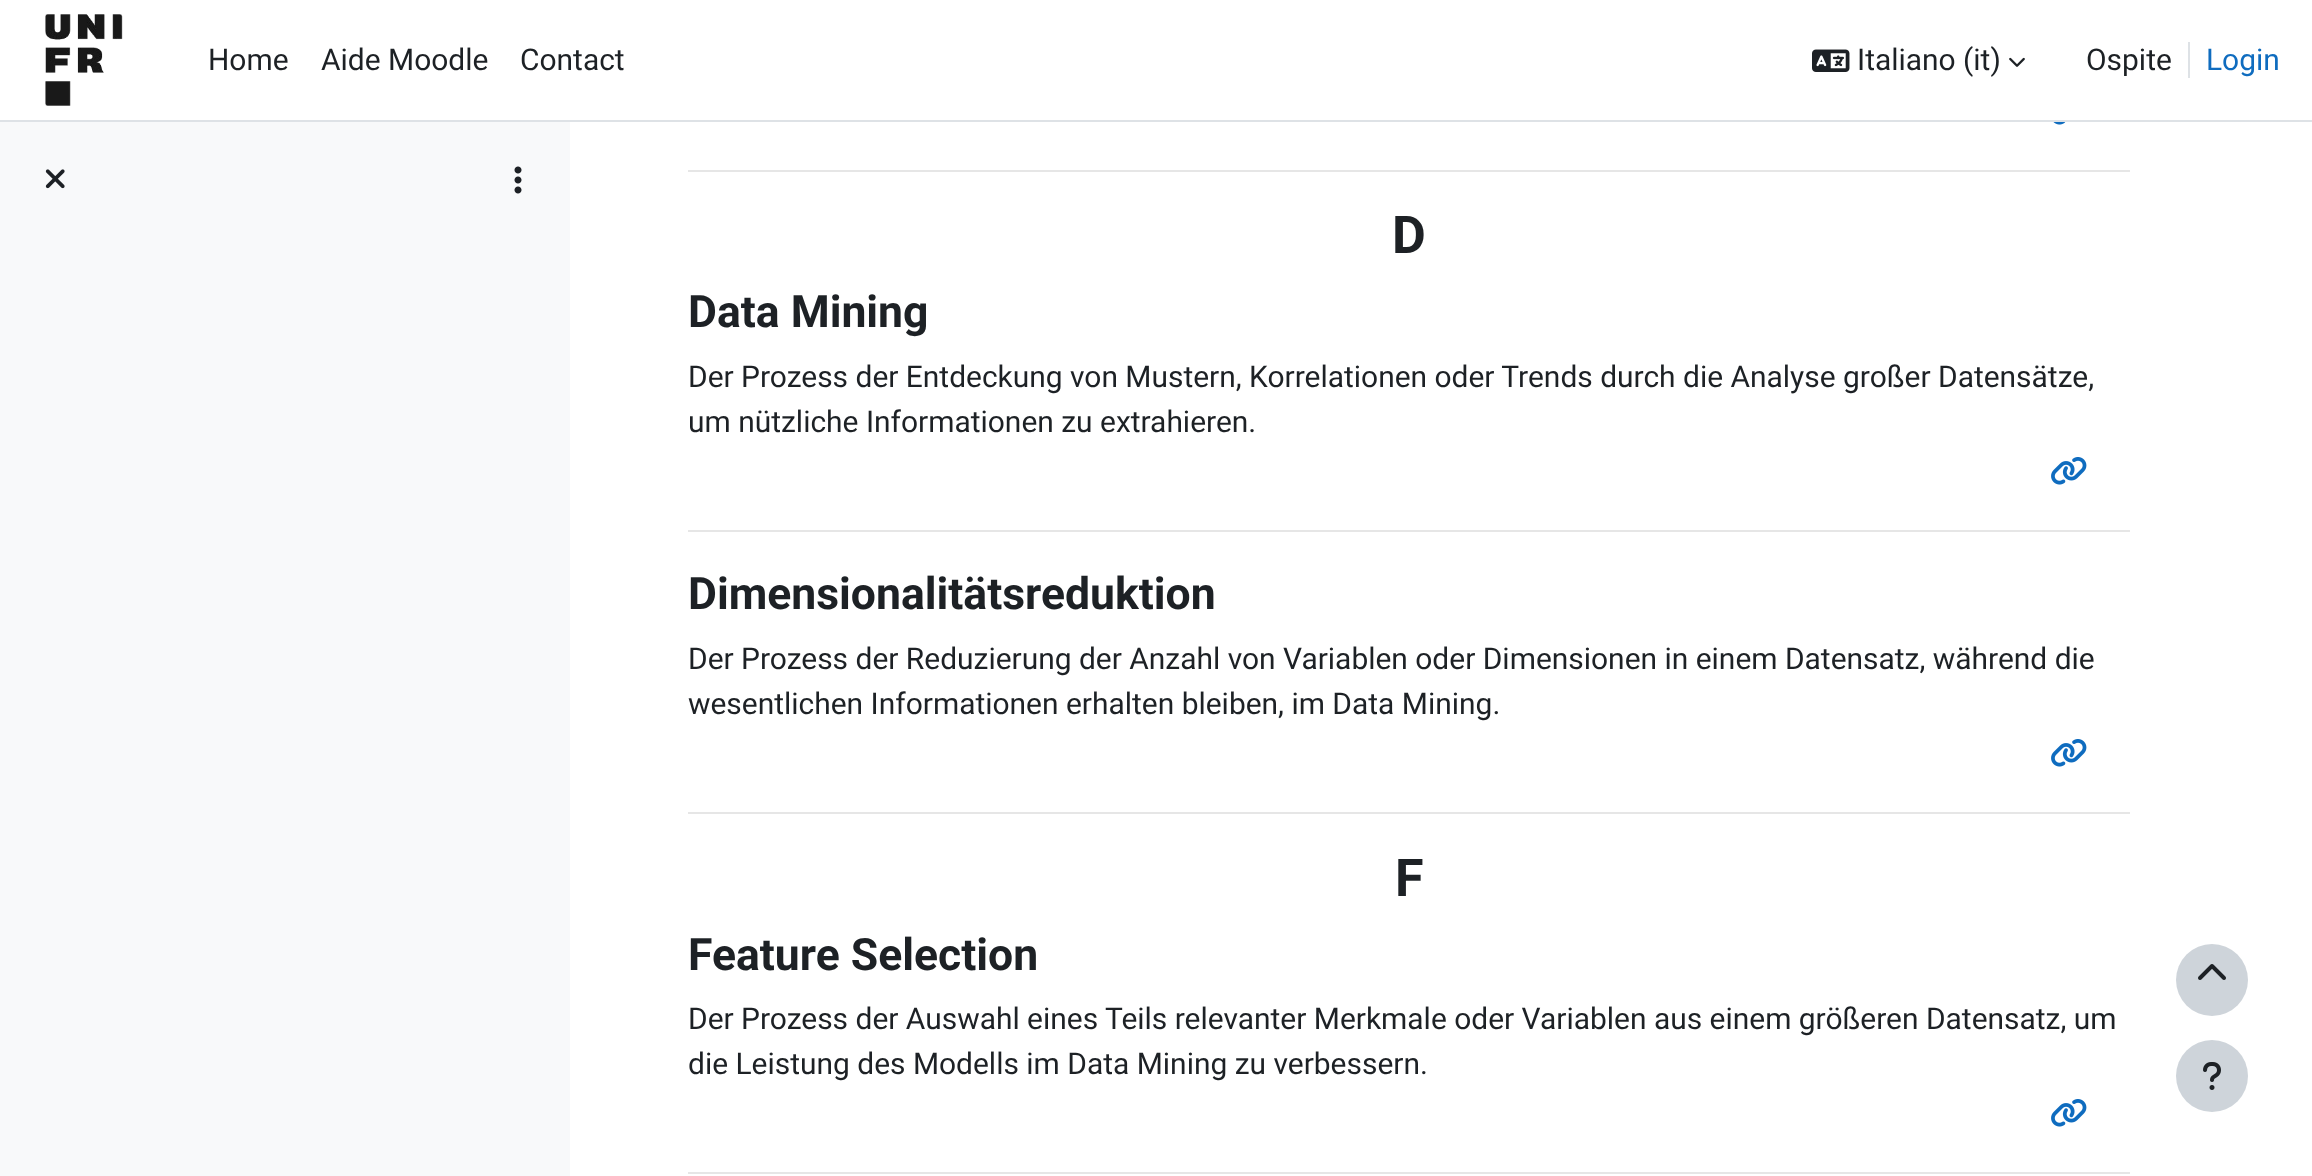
<svg xmlns="http://www.w3.org/2000/svg" width="2312" height="1176" viewBox="0 0 2312 1176">
  <rect width="100%" height="100%" fill="#ffffff"/>
  <rect x="0" y="120" width="2312" height="2" fill="#dee2e6"/>
  <image x="45" y="14" width="78" height="92" href="img1.png"/>
  <text x="208" y="70" font-family="Roboto" font-size="29.95" fill="#1d2125">Home</text>
  <text x="321" y="70" font-family="Roboto" font-size="29.95" fill="#1d2125">Aide Moodle</text>
  <text x="520" y="70" font-family="Roboto" font-size="29.95" fill="#1d2125">Contact</text>
  <image x="1812" y="49" width="38" height="23" href="img2.png"/>
  <text x="1857" y="70" font-family="Roboto" font-size="29.95" fill="#1d2125">Italiano (it)</text>
  <image x="2009" y="57" width="16" height="10" href="img3.png"/>
  <text x="2086" y="70" font-family="Roboto" font-size="29.95" fill="#1d2125">Ospite</text>
  <rect x="2188" y="42" width="2" height="36" fill="#dee2e6"/>
  <text x="2206" y="70" font-family="Roboto" font-size="29.95" fill="#0f6cbf">Login</text>
  <rect x="0" y="122" width="570" height="1054" fill="#f8f9fa"/>
  <image x="45" y="169" width="20" height="20" href="img4.png"/>
  <image x="514" y="166" width="8" height="28" href="img5.png"/>
  <image x="2053" y="122" width="13" height="3" href="img6.png"/>
  <rect x="688" y="170" width="1442" height="2" fill="#e6e6e6"/>
  <text x="1392" y="253" font-family="Roboto" font-size="52" font-weight="bold" fill="#1d2125">D</text>
  <text x="688" y="327" font-family="Roboto" font-size="44.5" font-weight="bold" fill="#1d2125">Data Mining</text>
  <text x="688" y="387" font-family="Roboto" font-size="29.95" fill="#1d2125">Der Prozess der Entdeckung von Mustern, Korrelationen oder Trends durch die Analyse großer Datensätze,</text>
  <text x="688" y="432" font-family="Roboto" font-size="29.95" fill="#1d2125">um nützliche Informationen zu extrahieren.</text>
  <image x="2051" y="457" width="36" height="28" href="img7.png"/>
  <rect x="688" y="530" width="1442" height="2" fill="#e6e6e6"/>
  <text x="688" y="609" font-family="Roboto" font-size="44.5" font-weight="bold" fill="#1d2125">Dimensionalitätsreduktion</text>
  <text x="688" y="669" font-family="Roboto" font-size="29.95" fill="#1d2125">Der Prozess der Reduzierung der Anzahl von Variablen oder Dimensionen in einem Datensatz, während die</text>
  <text x="688" y="714" font-family="Roboto" font-size="29.95" fill="#1d2125">wesentlichen Informationen erhalten bleiben, im Data Mining.</text>
  <image x="2051" y="739" width="36" height="28" href="img7.png"/>
  <rect x="688" y="812" width="1442" height="2" fill="#e6e6e6"/>
  <text x="1395" y="896" font-family="Roboto" font-size="52" font-weight="bold" fill="#1d2125">F</text>
  <text x="688" y="970" font-family="Roboto" font-size="44.5" font-weight="bold" fill="#1d2125">Feature Selection</text>
  <text x="688" y="1029" font-family="Roboto" font-size="29.95" fill="#1d2125">Der Prozess der Auswahl eines Teils relevanter Merkmale oder Variablen aus einem größeren Datensatz, um</text>
  <text x="688" y="1074" font-family="Roboto" font-size="29.95" fill="#1d2125">die Leistung des Modells im Data Mining zu verbessern.</text>
  <image x="2051" y="1099" width="36" height="28" href="img7.png"/>
  <rect x="688" y="1172" width="1442" height="2" fill="#e6e6e6"/>
  <circle cx="2212" cy="980" r="36" fill="#ced4da"/>
  <image x="2198" y="964" width="28" height="16" href="img8.png"/>
  <circle cx="2212" cy="1076" r="36" fill="#ced4da"/>
  <image x="2203" y="1062" width="18" height="28" href="img9.png"/>
</svg>
